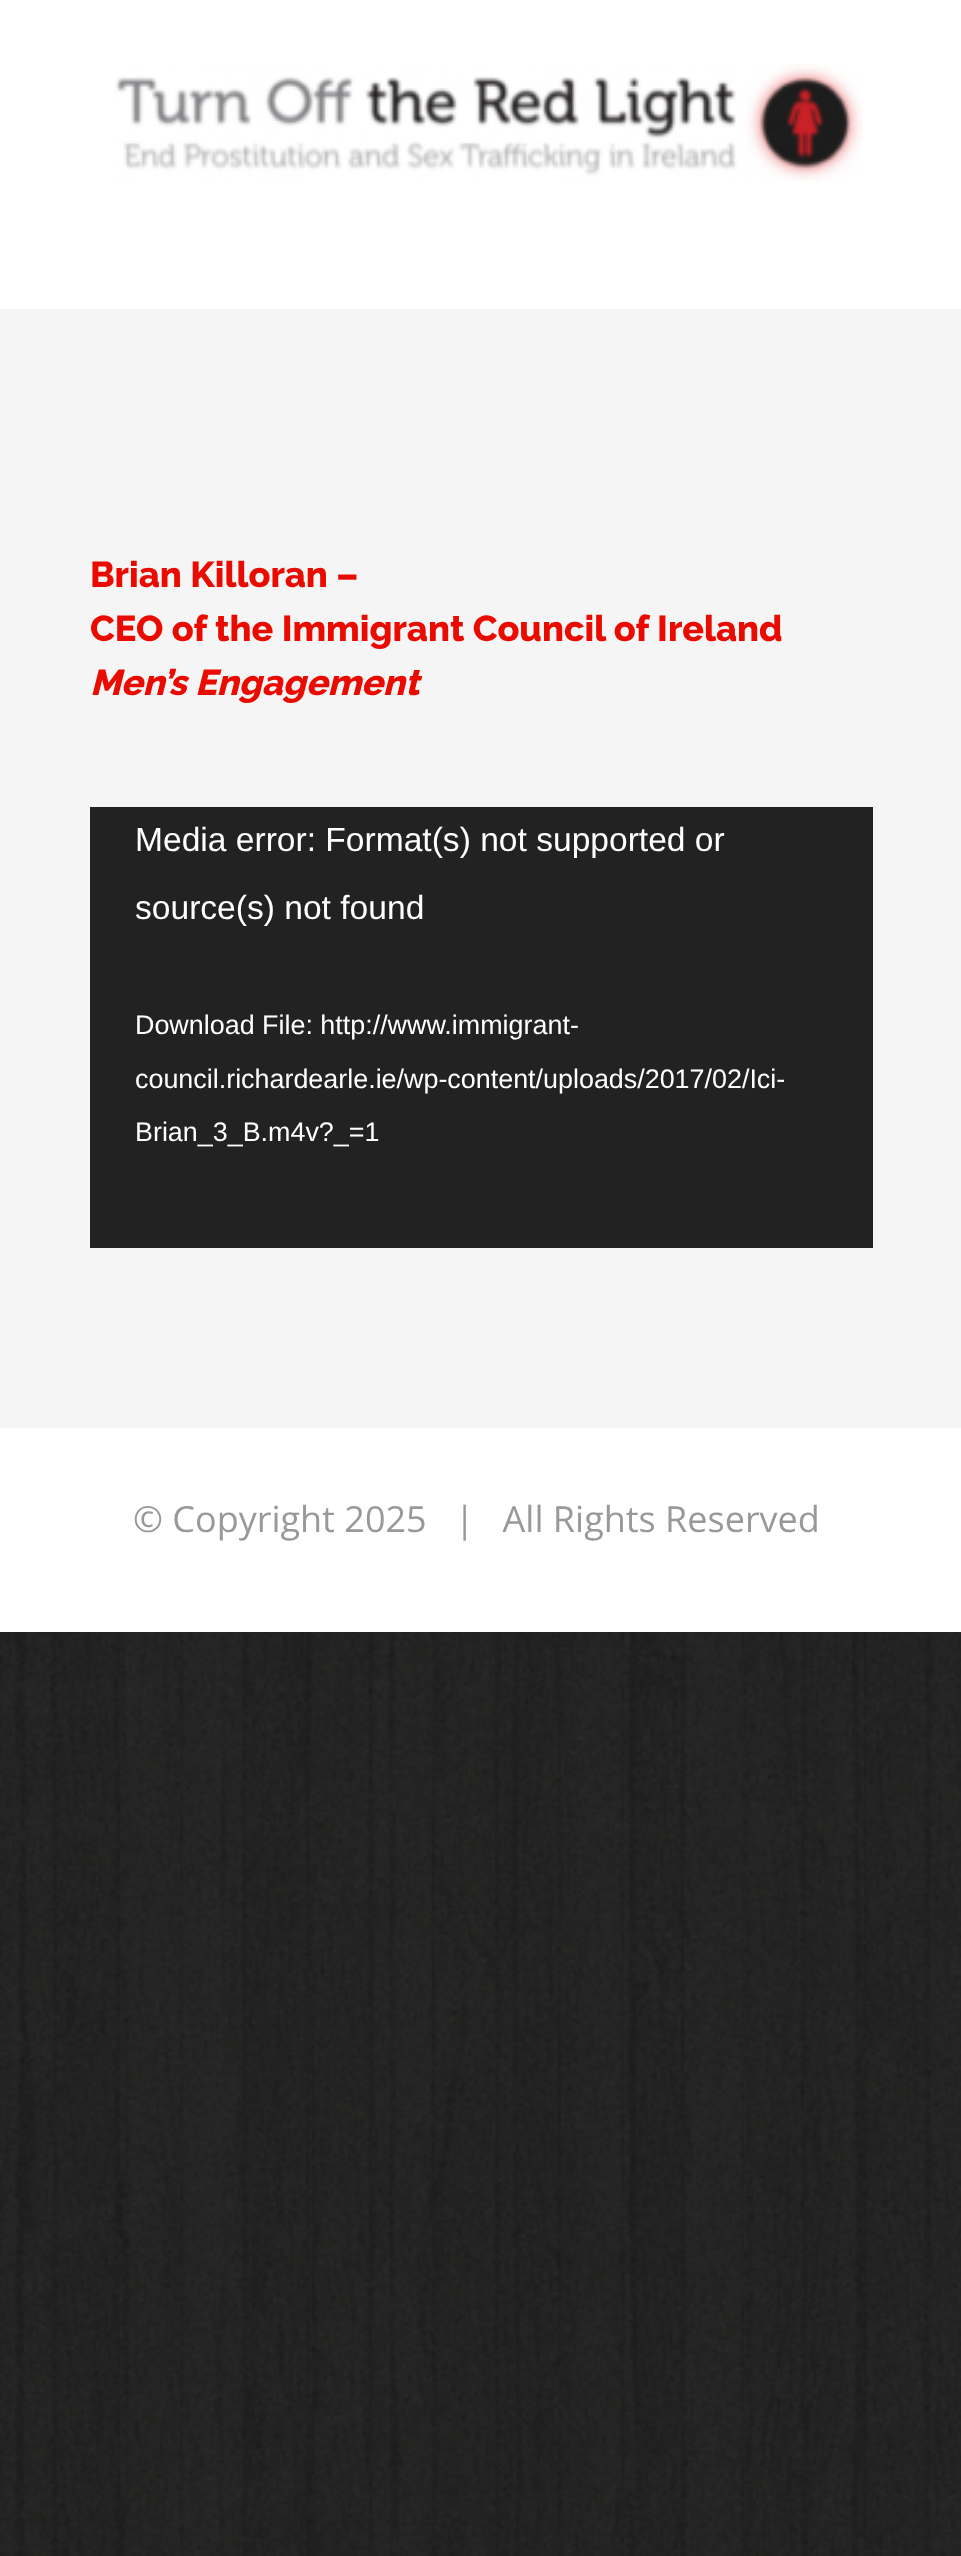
<svg xmlns="http://www.w3.org/2000/svg" width="961" height="2556" viewBox="0 0 961 2556">
  <rect width="100%" height="100%" fill="#ffffff"/>
  <image x="0" y="1632" width="961" height="924" href="img1.png"/>
  <image x="115" y="64" width="748" height="117" href="img2.png"/>
  <rect x="0" y="309" width="961" height="1119" fill="#f5f5f5"/>
  <text x="90" y="587" font-family="Raleway" font-size="36" font-weight="100" fill="#ea0b00">Brian Killoran –</text>
  <text x="90" y="641" font-family="Raleway" font-size="36" font-weight="100" fill="#ea0b00">CEO of the Immigrant Council of Ireland</text>
  <text x="90" y="695" font-family="Raleway" font-size="36" font-weight="100" font-style="italic" fill="#ea0b00">Men’s Engagement</text>
  <rect x="90" y="807" width="783" height="441" fill="#222222"/>
  <text x="135" y="851" font-family="Liberation Sans" font-size="33.6" fill="#ffffff">Media error: Format(s) not supported or</text>
  <text x="135" y="919" font-family="Liberation Sans" font-size="33.6" fill="#ffffff">source(s) not found</text>
  <text x="135" y="1034" font-family="Liberation Sans" font-size="26.9" fill="#ffffff">Download File: http://www.immigrant-</text>
  <text x="135" y="1088" font-family="Liberation Sans" font-size="26.9" fill="#ffffff">council.richardearle.ie/wp-content/uploads/2017/02/Ici-</text>
  <text x="135" y="1141" font-family="Liberation Sans" font-size="26.9" fill="#ffffff">Brian_3_B.m4v?_=1</text>
  <text x="133" y="1532" font-family="Open Sans" font-size="36" fill="#999999" xml:space="preserve">© Copyright 2025   |   All Rights Reserved</text>
</svg>
